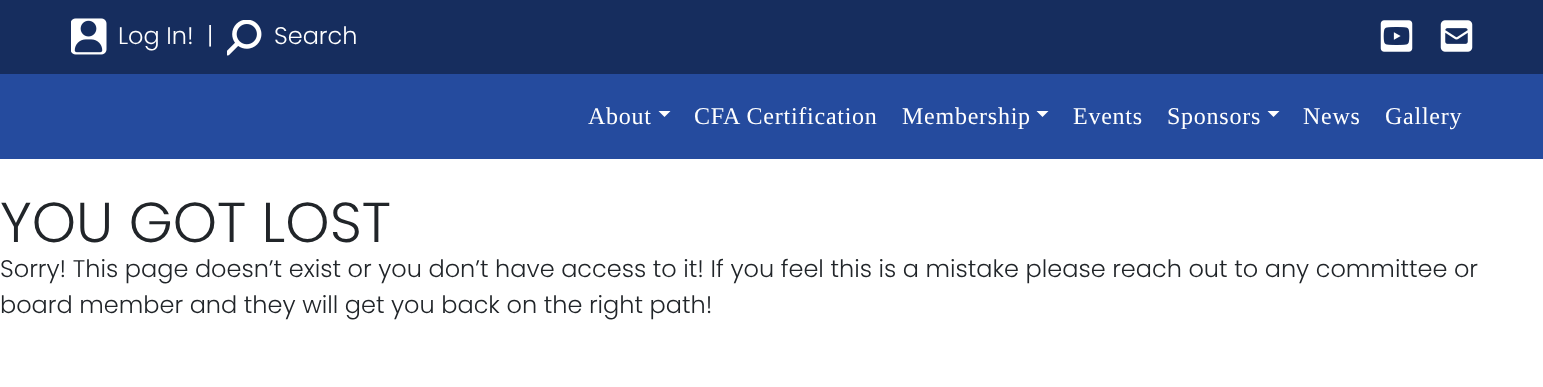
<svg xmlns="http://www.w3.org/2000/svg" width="1543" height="387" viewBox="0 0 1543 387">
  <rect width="100%" height="100%" fill="#ffffff"/>
  <rect x="0" y="0" width="1543" height="74" fill="#162d5e"/>
  <image x="71" y="18" width="36" height="37" href="img1.png"/>
  <text x="118" y="44" font-family="Poppins" font-size="24" font-weight="300" fill="#ffffff">Log In!</text>
  <text x="207" y="44" font-family="Poppins" font-size="24" font-weight="300" fill="#ffffff">|</text>
  <image x="227" y="20" width="35" height="36" href="img2.png"/>
  <text x="274" y="44" font-family="Poppins" font-size="24" font-weight="300" fill="#ffffff">Search</text>
  <image x="1380" y="20" width="33" height="32" href="img3.png"/>
  <image x="1440" y="20" width="33" height="32" href="img4.png"/>
  <rect x="0" y="74" width="1543" height="85" fill="#254b9e"/>
  <text x="588" y="124" font-family="Liberation Serif" font-size="24" letter-spacing="0.75" fill="#ffffff">About</text>
  <path d="M658.5 111H670.5L664.5 117Z" fill="#ffffff"/>
  <text x="694" y="124" font-family="Liberation Serif" font-size="24" letter-spacing="0.75" fill="#ffffff">CFA Certification</text>
  <text x="902" y="124" font-family="Liberation Serif" font-size="24" letter-spacing="0.75" fill="#ffffff">Membership</text>
  <path d="M1036.5 111H1048.5L1042.5 117Z" fill="#ffffff"/>
  <text x="1073" y="124" font-family="Liberation Serif" font-size="24" letter-spacing="0.75" fill="#ffffff">Events</text>
  <text x="1167" y="124" font-family="Liberation Serif" font-size="24" letter-spacing="0.75" fill="#ffffff">Sponsors</text>
  <path d="M1267.5 111H1279.5L1273.5 117Z" fill="#ffffff"/>
  <text x="1303" y="124" font-family="Liberation Serif" font-size="24" letter-spacing="0.75" fill="#ffffff">News</text>
  <text x="1385" y="124" font-family="Liberation Serif" font-size="24" letter-spacing="0.75" fill="#ffffff">Gallery</text>
  <text x="0" y="242" font-family="Poppins" font-size="56.25" font-weight="300" fill="#212529">YOU GOT LOST</text>
  <text x="0" y="277" font-family="Poppins" font-size="24" font-weight="300" fill="#212529">Sorry! This page doesn’t exist or you don’t have access to it! If you feel this is a mistake please reach out to any committee or</text>
  <text x="0" y="313" font-family="Poppins" font-size="24" font-weight="300" fill="#212529">board member and they will get you back on the right path!</text>
</svg>
